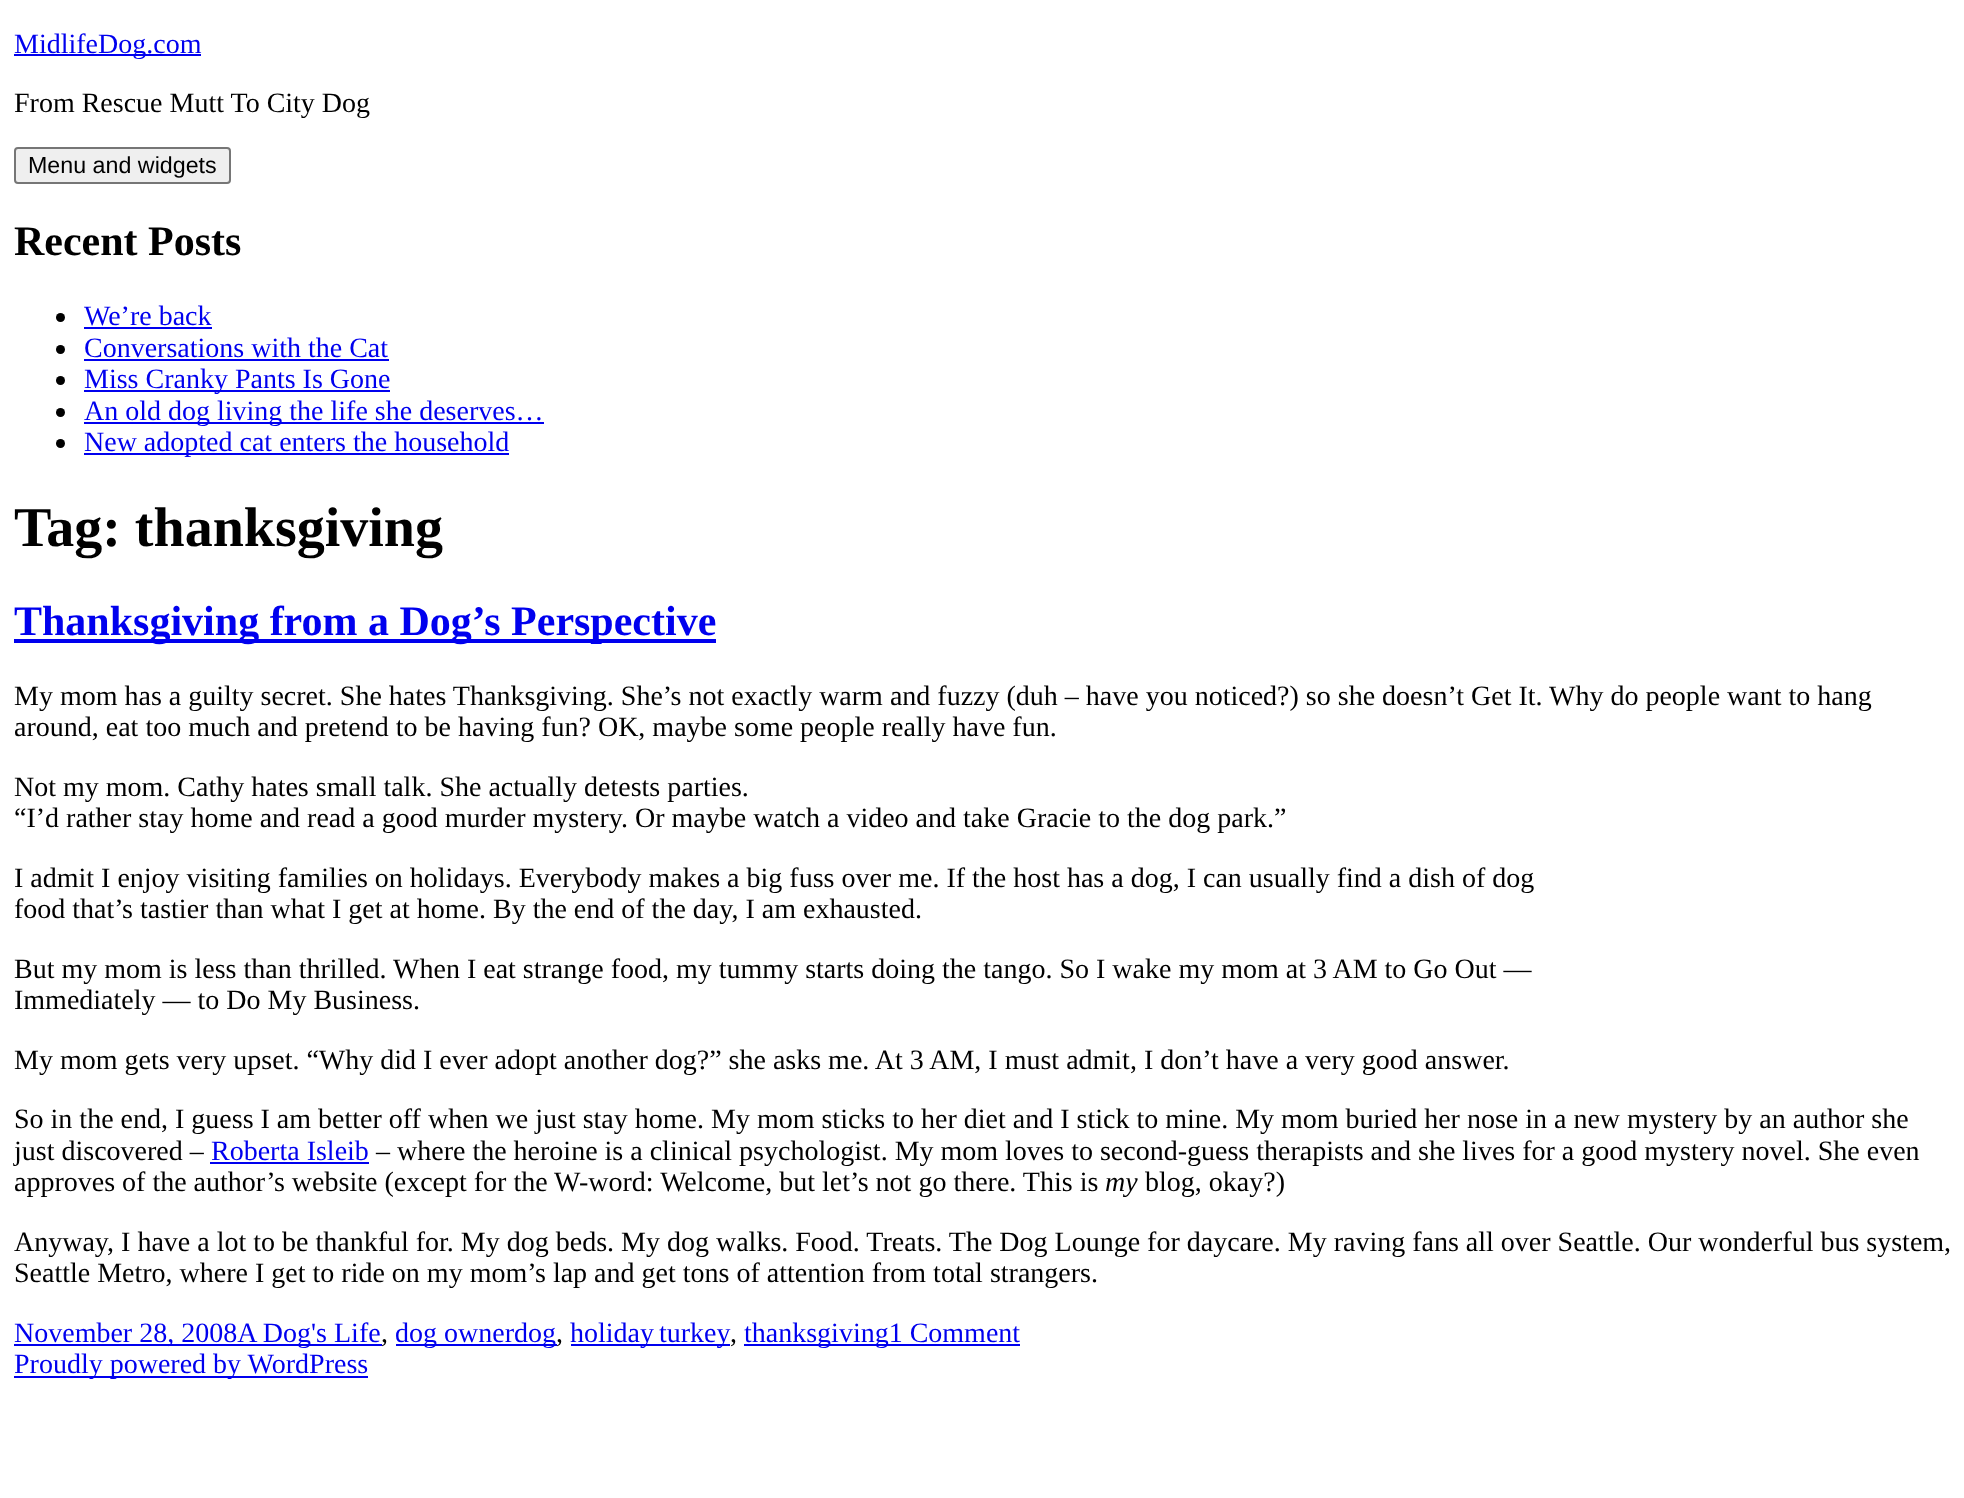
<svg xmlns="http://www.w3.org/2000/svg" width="1964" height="1498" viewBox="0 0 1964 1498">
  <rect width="100%" height="100%" fill="#ffffff"/>
  <rect x="14" y="54" width="187" height="2" fill="#0000ee"/>
  <text x="14" y="53" font-family="Liberation Serif" font-size="28" fill="#0000ee">MidlifeDog.com</text>
  <text x="14" y="112" font-family="Liberation Serif" font-size="28" fill="#000000">From Rescue Mutt To City Dog</text>
  <rect x="15" y="148" width="215" height="35" rx="3" fill="#efefef" stroke="#767676" stroke-width="2"/>
  <text x="28" y="173" font-family="Liberation Sans" font-size="23.25" fill="#000000">Menu and widgets</text>
  <text x="14" y="255" font-family="Liberation Serif" font-size="42" font-weight="bold" fill="#000000">Recent Posts</text>
  <circle cx="60.5" cy="317.5" r="4.5" fill="#000000"/>
  <text x="84" y="325" font-family="Liberation Serif" font-size="28" fill="#0000ee">We’re back</text>
  <rect x="84" y="327" width="128" height="2" fill="#0000ee"/>
  <circle cx="60.5" cy="349.5" r="4.5" fill="#000000"/>
  <text x="84" y="357" font-family="Liberation Serif" font-size="28" fill="#0000ee">Conversations with the Cat</text>
  <rect x="84" y="359" width="305" height="2" fill="#0000ee"/>
  <circle cx="60.5" cy="380.5" r="4.5" fill="#000000"/>
  <rect x="84" y="390" width="306" height="2" fill="#0000ee"/>
  <text x="84" y="388" font-family="Liberation Serif" font-size="28" fill="#0000ee">Miss Cranky Pants Is Gone</text>
  <circle cx="60.5" cy="412.5" r="4.5" fill="#000000"/>
  <rect x="84" y="422" width="460" height="2" fill="#0000ee"/>
  <text x="84" y="420" font-family="Liberation Serif" font-size="28" fill="#0000ee">An old dog living the life she deserves…</text>
  <circle cx="60.5" cy="443.5" r="4.5" fill="#000000"/>
  <rect x="84" y="453" width="425" height="2" fill="#0000ee"/>
  <text x="84" y="451" font-family="Liberation Serif" font-size="28" fill="#0000ee">New adopted cat enters the household</text>
  <text x="14" y="546" font-family="Liberation Serif" font-size="56" font-weight="bold" fill="#000000">Tag: thanksgiving</text>
  <rect x="14" y="639" width="702" height="4" fill="#0000ee"/>
  <text x="14" y="635" font-family="Liberation Serif" font-size="42" font-weight="bold" fill="#0000ee">Thanksgiving from a Dog’s Perspective</text>
  <text x="14" y="705" font-family="Liberation Serif" font-size="28" fill="#000000">My mom has a guilty secret. She hates Thanksgiving. She’s not exactly warm and fuzzy (duh – have you noticed?) so she doesn’t Get It. Why do people want to hang</text>
  <text x="14" y="736" font-family="Liberation Serif" font-size="28" fill="#000000">around, eat too much and pretend to be having fun? OK, maybe some people really have fun.</text>
  <text x="14" y="796" font-family="Liberation Serif" font-size="28" fill="#000000">Not my mom. Cathy hates small talk. She actually detests parties.</text>
  <text x="14" y="827" font-family="Liberation Serif" font-size="28" fill="#000000">“I’d rather stay home and read a good murder mystery. Or maybe watch a video and take Gracie to the dog park.”</text>
  <text x="14" y="887" font-family="Liberation Serif" font-size="28" fill="#000000">I admit I enjoy visiting families on holidays. Everybody makes a big fuss over me. If the host has a dog, I can usually find a dish of dog</text>
  <text x="14" y="918" font-family="Liberation Serif" font-size="28" fill="#000000">food that’s tastier than what I get at home. By the end of the day, I am exhausted.</text>
  <text x="14" y="978" font-family="Liberation Serif" font-size="28" fill="#000000">But my mom is less than thrilled. When I eat strange food, my tummy starts doing the tango. So I wake my mom at 3 AM to Go Out —</text>
  <text x="14" y="1009" font-family="Liberation Serif" font-size="28" fill="#000000">Immediately — to Do My Business.</text>
  <text x="14" y="1069" font-family="Liberation Serif" font-size="28" fill="#000000">My mom gets very upset. “Why did I ever adopt another dog?” she asks me. At 3 AM, I must admit, I don’t have a very good answer.</text>
  <text x="14" y="1128" font-family="Liberation Serif" font-size="28" fill="#000000">So in the end, I guess I am better off when we just stay home. My mom sticks to her diet and I stick to mine. My mom buried her nose in a new mystery by an author she</text>
  <text x="14" y="1160" font-family="Liberation Serif" font-size="28" fill="#000000">just discovered –</text>
  <text x="211" y="1160" font-family="Liberation Serif" font-size="28" fill="#0000ee">Roberta Isleib</text>
  <rect x="210" y="1162" width="159" height="2" fill="#0000ee"/>
  <text x="376" y="1160" font-family="Liberation Serif" font-size="28" fill="#000000">– where the heroine is a clinical psychologist. My mom loves to second-guess therapists and she lives for a good mystery novel. She even</text>
  <text x="14" y="1191" font-family="Liberation Serif" font-size="28" fill="#000000">approves of the author’s website (except for the W-word: Welcome, but let’s not go there. This is</text>
  <text x="1105" y="1191" font-family="Liberation Serif" font-size="28" font-style="italic" fill="#000000">my</text>
  <text x="1145" y="1191" font-family="Liberation Serif" font-size="28" fill="#000000">blog, okay?)</text>
  <text x="14" y="1251" font-family="Liberation Serif" font-size="28" fill="#000000">Anyway, I have a lot to be thankful for. My dog beds. My dog walks. Food. Treats. The Dog Lounge for daycare. My raving fans all over Seattle. Our wonderful bus system,</text>
  <text x="14" y="1282" font-family="Liberation Serif" font-size="28" fill="#000000">Seattle Metro, where I get to ride on my mom’s lap and get tons of attention from total strangers.</text>
  <rect x="14" y="1344" width="368" height="2" fill="#0000ee"/>
  <text x="14" y="1342" font-family="Liberation Serif" font-size="28" fill="#0000ee">November 28, 2008A Dog's Life</text>
  <text x="381" y="1342" font-family="Liberation Serif" font-size="28" fill="#000000">,</text>
  <rect x="396" y="1344" width="161" height="2" fill="#0000ee"/>
  <text x="395" y="1342" font-family="Liberation Serif" font-size="28" fill="#0000ee">dog ownerdog</text>
  <text x="556" y="1342" font-family="Liberation Serif" font-size="28" fill="#000000">,</text>
  <rect x="571" y="1344" width="159" height="2" fill="#0000ee"/>
  <text x="570" y="1342" word-spacing="-2" font-family="Liberation Serif" font-size="28" fill="#0000ee">holiday turkey</text>
  <text x="730" y="1342" font-family="Liberation Serif" font-size="28" fill="#000000">,</text>
  <rect x="744" y="1344" width="276" height="2" fill="#0000ee"/>
  <text x="744" y="1342" font-family="Liberation Serif" font-size="28" fill="#0000ee">thanksgiving1 Comment</text>
  <rect x="14" y="1376" width="354" height="2" fill="#0000ee"/>
  <text x="14" y="1373" font-family="Liberation Serif" font-size="28" fill="#0000ee">Proudly powered by WordPress</text>
</svg>
